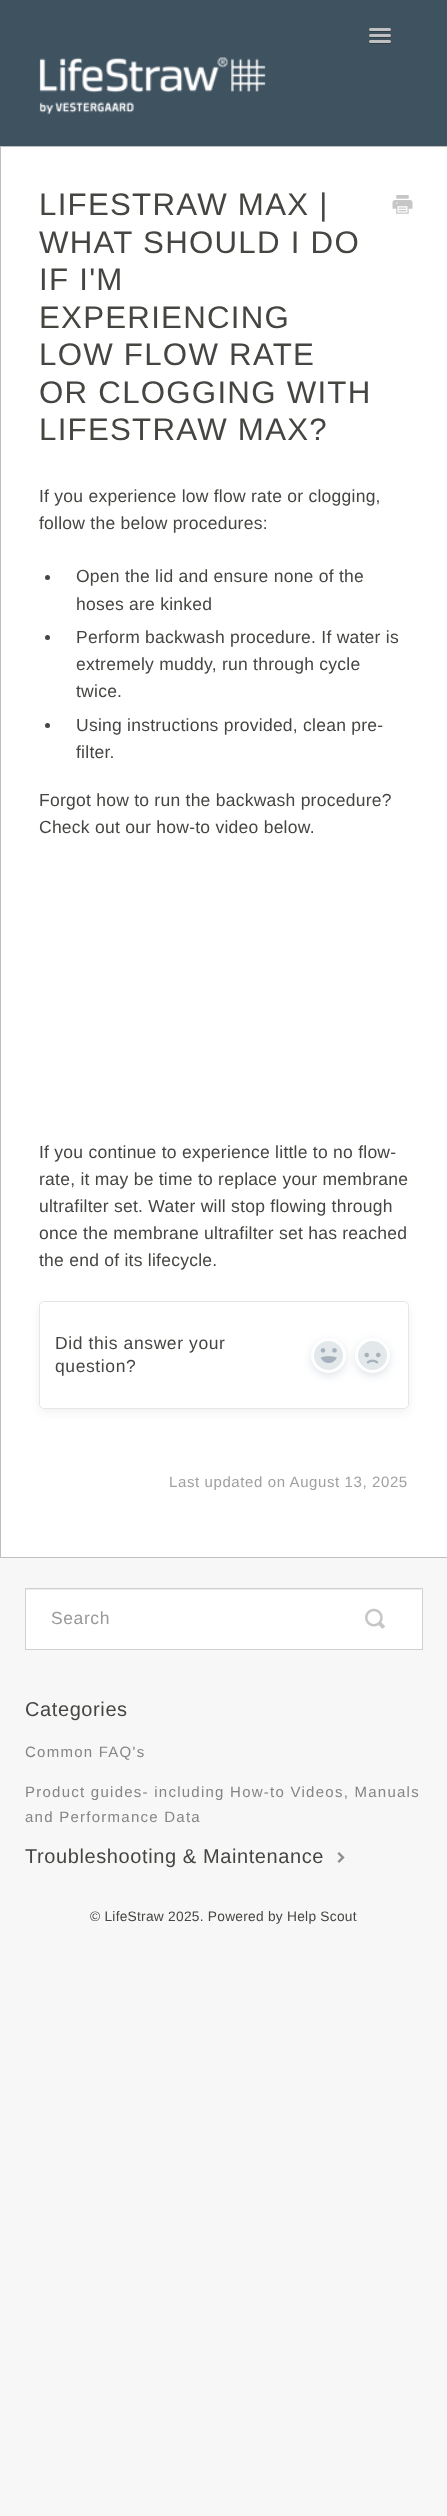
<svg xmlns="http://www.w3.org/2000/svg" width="447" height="2516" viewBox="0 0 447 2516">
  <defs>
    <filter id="blur1" x="-50%" y="-200%" width="200%" height="500%"><feGaussianBlur stdDeviation="4"/></filter>
  </defs>
  <rect width="100%" height="100%" fill="#f7f7f7"/>
  <rect x="0" y="0" width="447" height="146" fill="#3f5260"/>
  <path d="M369 29.5C367.5 32.5 373 32 373.5 32H386.5C387 32 392.5 32.5 391 29.5C390 30 370 30 369 29.5Z" fill="#2f3e48"/>
  <rect x="369" y="28" width="22" height="3" rx="1.5" fill="#c0c0c0"/>
  <path d="M369 36C368 38.5 373 38 373.5 38H386.5C387 38 392 38.5 391 36C390 36.5 370 36.5 369 36Z" fill="#2f3e48"/>
  <rect x="369" y="34" width="22" height="3" rx="1.5" fill="#c0c0c0"/>
  <path d="M369 42C368.5 44.5 373 44 373.5 44H386.5C387 44 391.5 44.5 391 42C390 43 370 43 369 42Z" fill="#2f3e48"/>
  <rect x="369" y="40" width="22" height="3" rx="1.5" fill="#c0c0c0"/>
  <image x="39" y="57" width="227" height="57" href="img1.png"/>
  <rect x="0.5" y="146.5" width="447" height="1411" fill="#ffffff" stroke="#bebebe"/>
  <text x="39" y="215" font-family="Liberation Sans" font-size="31.25" letter-spacing="1.25" fill="#454542">LIFESTRAW MAX |</text>
  <text x="39" y="253" font-family="Liberation Sans" font-size="31.25" letter-spacing="1.25" fill="#454542">WHAT SHOULD I DO</text>
  <text x="39" y="290" font-family="Liberation Sans" font-size="31.25" letter-spacing="1.25" fill="#454542">IF I'M</text>
  <text x="39" y="328" font-family="Liberation Sans" font-size="31.25" letter-spacing="1.25" fill="#454542">EXPERIENCING</text>
  <text x="39" y="365" font-family="Liberation Sans" font-size="31.25" letter-spacing="1.25" fill="#454542">LOW FLOW RATE</text>
  <text x="39" y="403" font-family="Liberation Sans" font-size="31.25" letter-spacing="1.25" fill="#454542">OR CLOGGING WITH</text>
  <text x="39" y="440" font-family="Liberation Sans" font-size="31.25" letter-spacing="1.25" fill="#454542">LIFESTRAW MAX?</text>
  <image x="392" y="195" width="21" height="19" href="img2.png"/>
  <text x="39" y="502" font-family="Liberation Sans" font-size="17.5" letter-spacing="0.25" fill="#454542">If you experience low flow rate or clogging,</text>
  <text x="39" y="529" font-family="Liberation Sans" font-size="17.5" letter-spacing="0.25" fill="#454542">follow the below procedures:</text>
  <circle cx="47.5" cy="577.5" r="2.5" fill="#454542"/>
  <text x="76" y="582" font-family="Liberation Sans" font-size="17.5" letter-spacing="0.25" fill="#454542">Open the lid and ensure none of the</text>
  <text x="76" y="610" font-family="Liberation Sans" font-size="17.5" letter-spacing="0.25" fill="#454542">hoses are kinked</text>
  <circle cx="47.5" cy="637.5" r="2.5" fill="#454542"/>
  <text x="76" y="643" font-family="Liberation Sans" font-size="17.5" letter-spacing="0.25" fill="#454542">Perform backwash procedure. If water is</text>
  <text x="76" y="670" font-family="Liberation Sans" font-size="17.5" letter-spacing="0.25" fill="#454542">extremely muddy, run through cycle</text>
  <text x="76" y="697" font-family="Liberation Sans" font-size="17.5" letter-spacing="0.25" fill="#454542">twice.</text>
  <circle cx="47.5" cy="725.5" r="2.5" fill="#454542"/>
  <text x="76" y="731" font-family="Liberation Sans" font-size="17.5" letter-spacing="0.25" fill="#454542">Using instructions provided, clean pre-</text>
  <text x="76" y="758" font-family="Liberation Sans" font-size="17.5" letter-spacing="0.25" fill="#454542">filter.</text>
  <text x="39" y="806" font-family="Liberation Sans" font-size="17.5" letter-spacing="0.25" fill="#454542">Forgot how to run the backwash procedure?</text>
  <text x="39" y="833" font-family="Liberation Sans" font-size="17.5" letter-spacing="0.25" fill="#454542">Check out our how-to video below.</text>
  <text x="39" y="1158" font-family="Liberation Sans" font-size="17.5" letter-spacing="0.25" fill="#454542">If you continue to experience little to no flow-</text>
  <text x="39" y="1185" font-family="Liberation Sans" font-size="17.5" letter-spacing="0.25" fill="#454542">rate, it may be time to replace your membrane</text>
  <text x="39" y="1212" font-family="Liberation Sans" font-size="17.5" letter-spacing="0.25" fill="#454542">ultrafilter set. Water will stop flowing through</text>
  <text x="39" y="1239" font-family="Liberation Sans" font-size="17.5" letter-spacing="0.25" fill="#454542">once the membrane ultrafilter set has reached</text>
  <text x="39" y="1266" font-family="Liberation Sans" font-size="17.5" letter-spacing="0.25" fill="#454542">the end of its lifecycle.</text>
  <rect x="39" y="1305" width="370" height="108" rx="5" fill="#000000" fill-opacity="0.05" filter="url(#blur1)"/>
  <rect x="39.5" y="1301.5" width="369" height="107" rx="4.5" fill="#ffffff" stroke="#e9e5e5"/>
  <text x="55" y="1349" font-family="Liberation Sans" font-size="17.5" letter-spacing="0.6" fill="#454542">Did this answer your</text>
  <text x="55" y="1372" font-family="Liberation Sans" font-size="17.5" letter-spacing="0.6" fill="#454542">question?</text>
  <rect x="311" y="1341" width="35" height="35" rx="17.5" fill="#c1cbd4" fill-opacity="0.5" filter="url(#blur1)"/>
  <circle cx="328.5" cy="1355.5" r="16" fill="#e3e8eb" stroke="#ffffff" stroke-width="3"/>
  <image x="320" y="1348" width="17" height="15" href="img3.png"/>
  <rect x="355" y="1341" width="35" height="35" rx="17.5" fill="#c1cbd4" fill-opacity="0.5" filter="url(#blur1)"/>
  <circle cx="372.5" cy="1355.5" r="16" fill="#e3e8eb" stroke="#ffffff" stroke-width="3"/>
  <image x="364" y="1352" width="17" height="12" href="img4.png"/>
  <text x="169" y="1487" font-family="Liberation Sans" font-size="15" letter-spacing="0.6" fill="#a0a0a0">Last updated on August 13, 2025</text>
  <rect x="26" y="1589" width="396" height="60" fill="#ffffff"/>
  <rect x="26" y="1589" width="395" height="1" fill="#ececec"/>
  <rect x="25.5" y="1588.5" width="397" height="61" fill="none" stroke="#d0d0d0"/>
  <text x="51" y="1624" font-family="Liberation Sans" font-size="17.5" letter-spacing="0.6" fill="#999999">Search</text>
  <image x="365" y="1608" width="20" height="21" href="img5.png"/>
  <text x="25" y="1716" font-family="Liberation Sans" font-size="20" letter-spacing="0.6" fill="#454542">Categories</text>
  <text x="25" y="1757" font-family="Liberation Sans" font-size="15" letter-spacing="1.25" fill="#858585">Common FAQ's</text>
  <text x="25" y="1797" font-family="Liberation Sans" font-size="15" letter-spacing="1.25" fill="#858585">Product guides- including How-to Videos, Manuals</text>
  <text x="25" y="1822" font-family="Liberation Sans" font-size="15" letter-spacing="1.25" fill="#858585">and Performance Data</text>
  <text x="25" y="1863" font-family="Liberation Sans" font-size="20" letter-spacing="0.6" fill="#454542">Troubleshooting &amp; Maintenance</text>
  <image x="337" y="1852" width="8" height="11" href="img6.png"/>
  <text x="90" y="1921" font-family="Liberation Sans" font-size="13.75" letter-spacing="0.25" fill="#454542">© LifeStraw 2025. Powered by Help Scout</text>
</svg>
